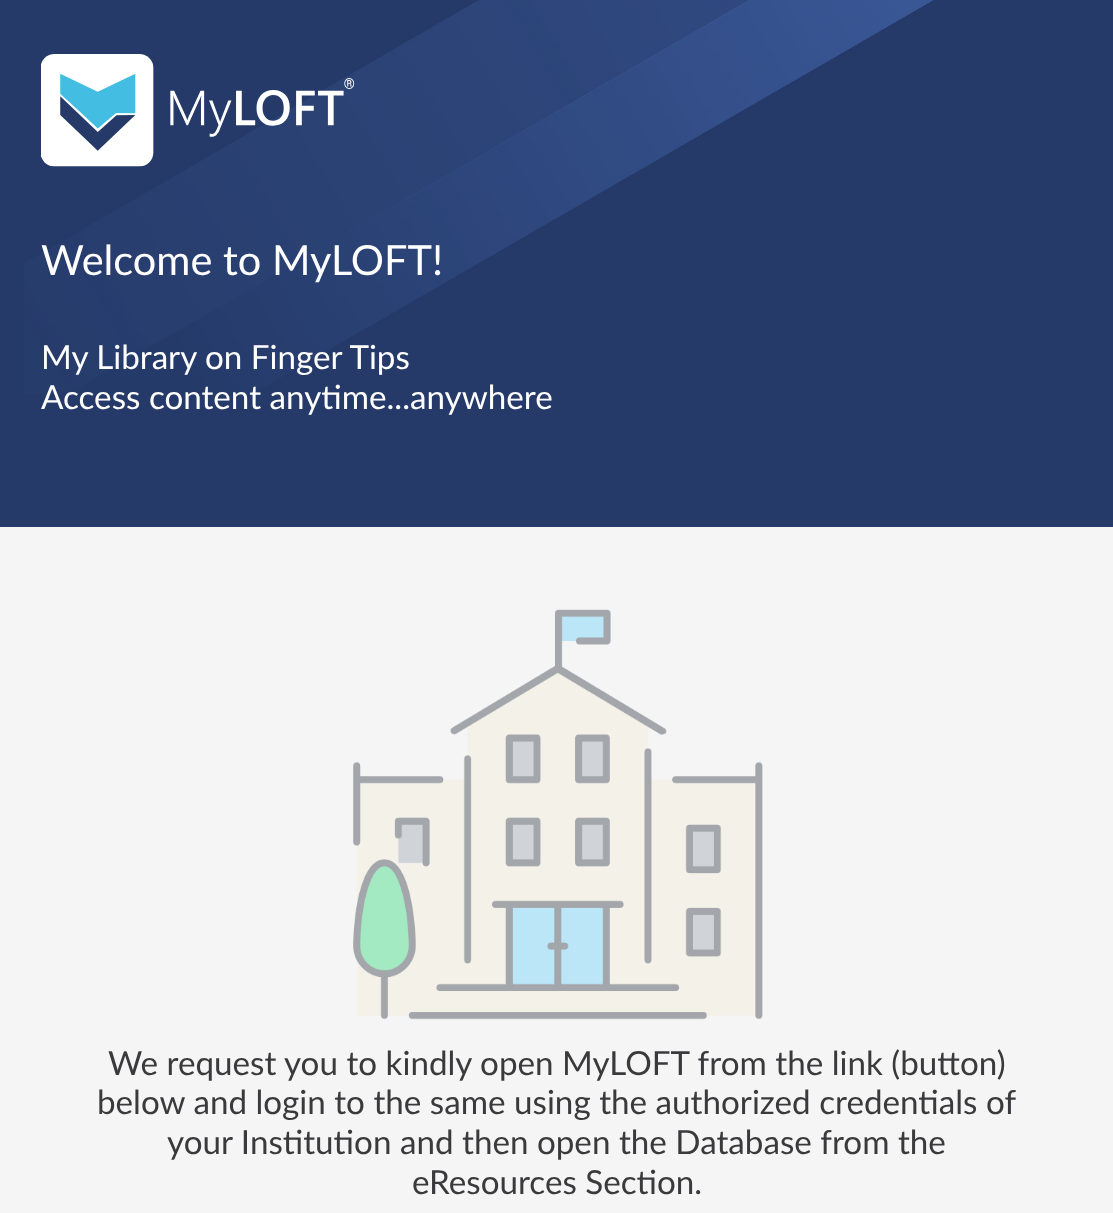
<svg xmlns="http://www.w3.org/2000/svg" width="1113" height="1213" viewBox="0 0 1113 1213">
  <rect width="100%" height="100%" fill="#f5f5f5"/>
  <rect x="0" y="0" width="1113" height="527" fill="#253a69"/>
  <image x="24" y="0" width="910" height="393" href="img1.png"/>
  <image x="41" y="54" width="314" height="113" href="img2.png"/>
  <text x="41" y="275" font-family="Lato" font-size="41.5" fill="#ffffff">Welcome to MyLOFT!</text>
  <text x="41" y="369" font-family="Lato" font-size="33.2" fill="#ffffff">My Library on Finger Tips</text>
  <text x="41" y="409" font-family="Lato" font-size="33.2" fill="#ffffff">Access content anytime...anywhere</text>
  <image x="353" y="609" width="410" height="411" href="img3.png"/>
  <text x="108" y="1075" font-family="Lato" font-size="33.2" fill="#3a3a3c">We request you to kindly open MyLOFT from the link (button)</text>
  <text x="97" y="1114" font-family="Lato" font-size="33.2" fill="#3a3a3c">below and login to the same using the authorized credentials of</text>
  <text x="167" y="1154" font-family="Lato" font-size="33.2" fill="#3a3a3c">your Institution and then open the Database from the</text>
  <text x="412" y="1194" font-family="Lato" font-size="33.2" fill="#3a3a3c">eResources Section.</text>
</svg>
